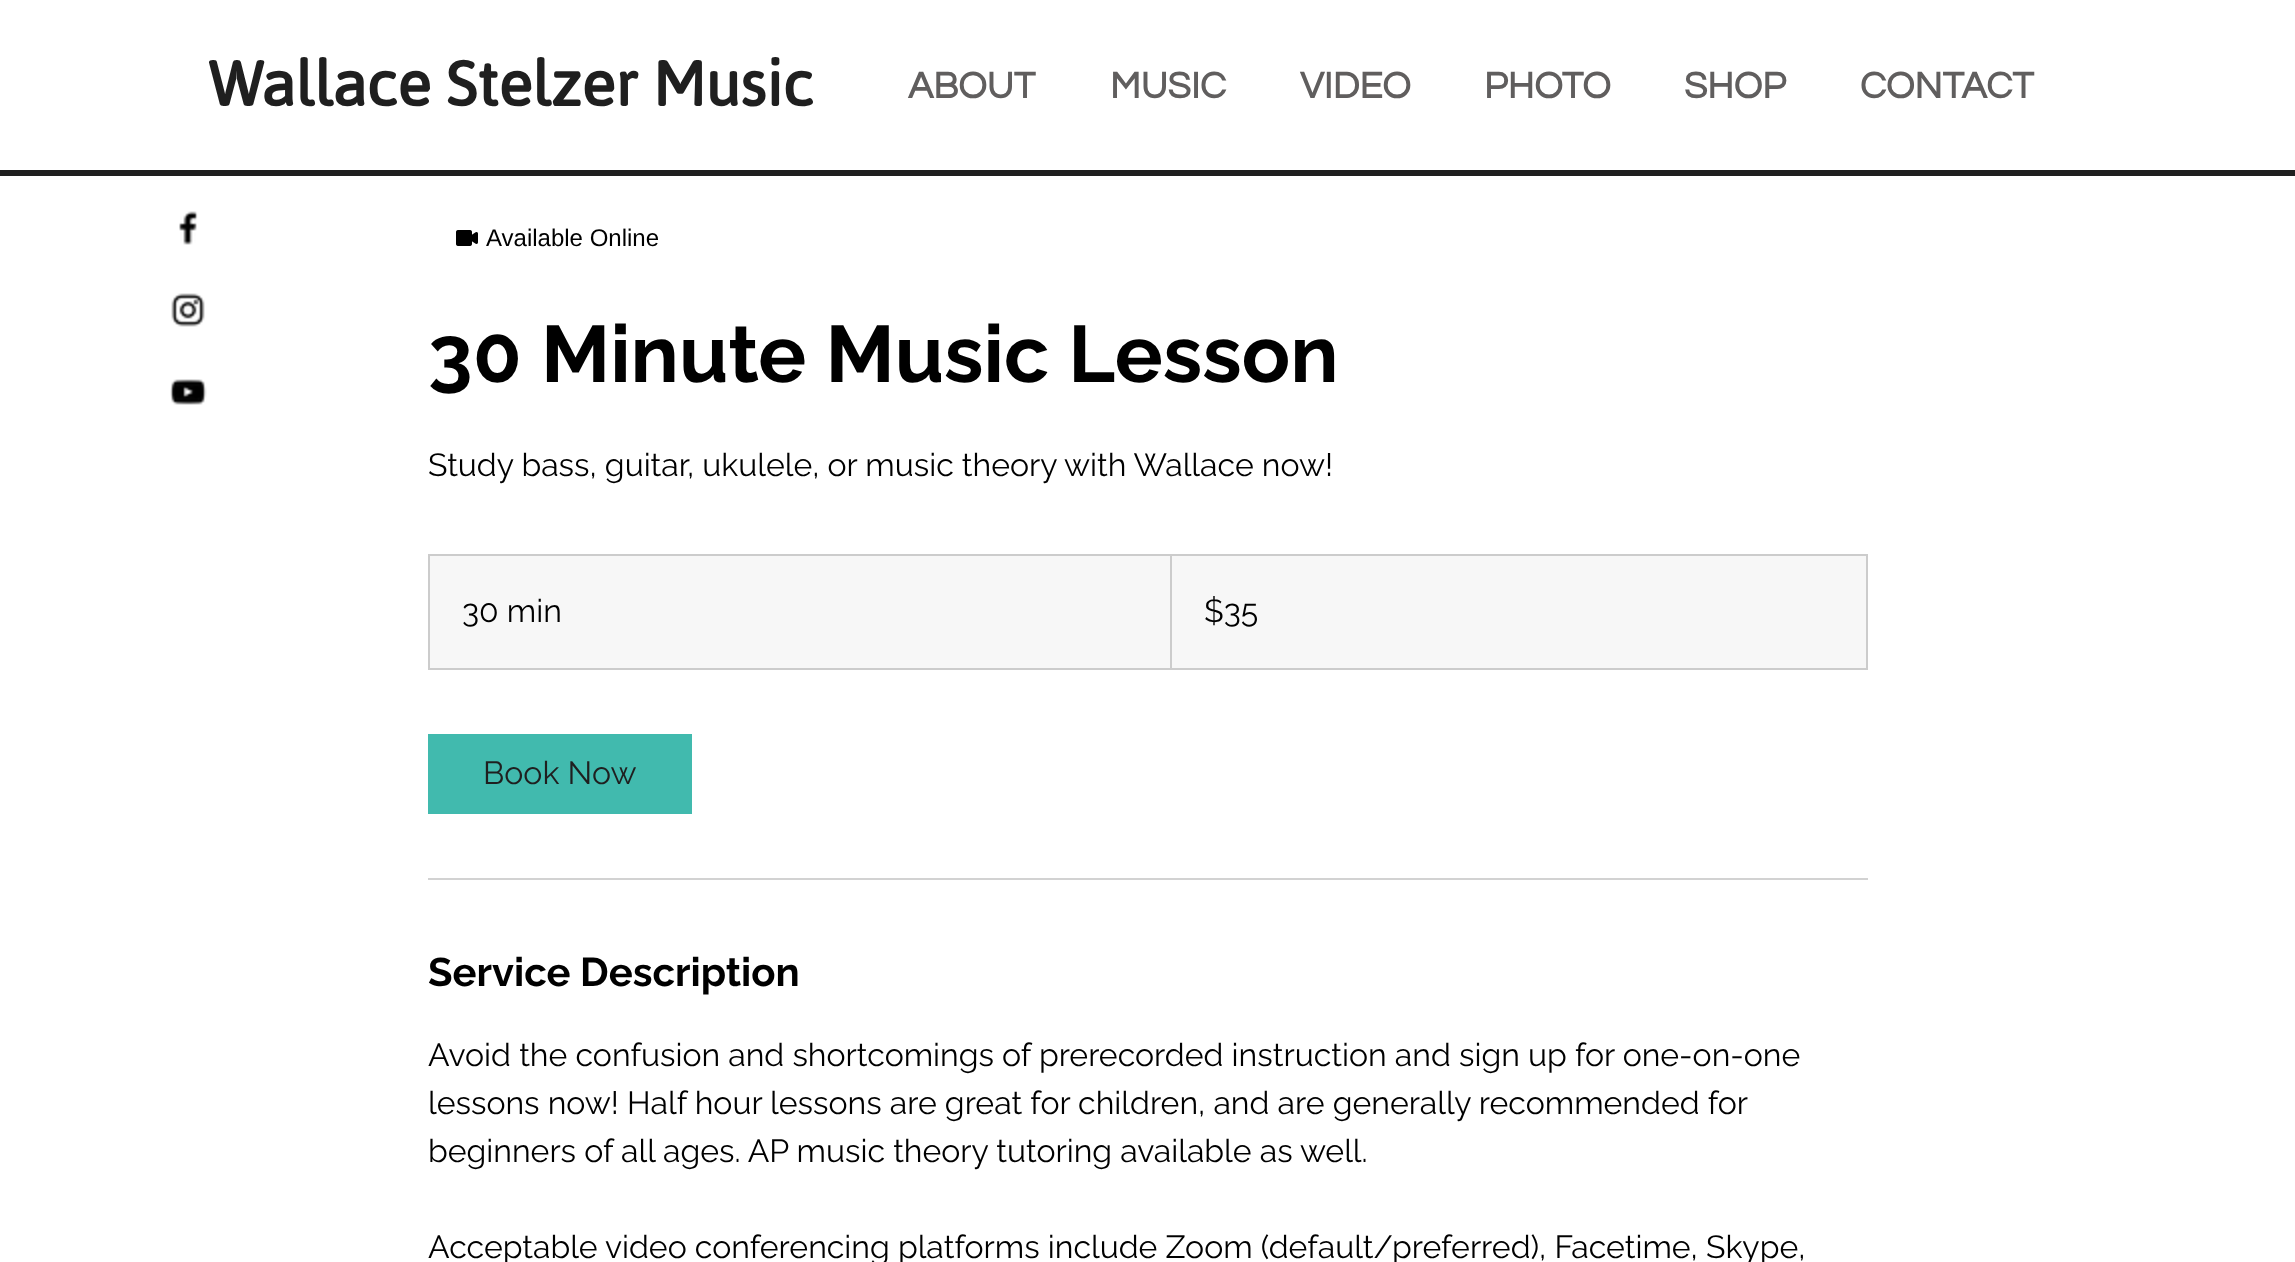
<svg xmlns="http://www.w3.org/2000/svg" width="2295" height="1262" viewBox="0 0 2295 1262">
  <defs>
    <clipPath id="clip1"><rect x="430" y="556" width="1436" height="112"/></clipPath>
  </defs>
  <rect width="100%" height="100%" fill="#ffffff"/>
  <text x="208" y="106" font-family="Jaldi" font-size="72" font-weight="bold" fill="#1f1f1f">Wallace Stelzer Music</text>
  <text x="908" y="98" font-family="Questrial" font-size="38" font-weight="bold" fill="#605e5e">ABOUT</text>
  <text x="1110" y="98" font-family="Questrial" font-size="38" font-weight="bold" fill="#605e5e">MUSIC</text>
  <text x="1300" y="98" font-family="Questrial" font-size="38" font-weight="bold" fill="#605e5e">VIDEO</text>
  <text x="1484" y="98" font-family="Questrial" font-size="38" font-weight="bold" fill="#605e5e">PHOTO</text>
  <text x="1684" y="98" font-family="Questrial" font-size="38" font-weight="bold" fill="#605e5e">SHOP</text>
  <text x="1860" y="98" font-family="Questrial" font-size="38" font-weight="bold" fill="#605e5e">CONTACT</text>
  <rect x="0" y="170" width="2295" height="6" fill="#1f1f1f"/>
  <image x="179" y="211" width="19" height="34" href="img1.png"/>
  <image x="171" y="293" width="34" height="34" href="img2.png"/>
  <image x="170" y="379" width="37" height="26" href="img3.png"/>
  <image x="456" y="230" width="22" height="16" href="img4.png"/>
  <text x="486" y="246" font-family="Liberation Sans" font-size="24" fill="#000000">Available Online</text>
  <text x="428" y="382" font-family="Raleway" font-size="80" font-weight="bold" fill="#000000">30 Minute Music Lesson</text>
  <text x="428" y="476" font-family="Raleway" font-size="32" fill="#000000">Study bass, guitar, ukulele, or music theory with Wallace now!</text>
  <rect x="429" y="555" width="1438" height="114" fill="#f7f7f7" stroke="#cccccc" stroke-width="2"/>
  <text x="462" y="622" font-family="Raleway" font-size="32" fill="#000000">30 min</text>
  <g clip-path="url(#clip1)">
    <path d="M1170 668V554L1172 556V668Z" fill="#cccccc"/>
  </g>
  <text x="1204" y="622" font-family="Raleway" font-size="32" fill="#000000">$35</text>
  <rect x="428" y="734" width="264" height="80" fill="#41baae"/>
  <text x="483" y="784" font-family="Raleway" font-size="32" fill="#1f1f1f">Book Now</text>
  <rect x="428" y="878" width="1440" height="2" fill="#d2d2d2"/>
  <text x="428" y="986" font-family="Raleway" font-size="40" font-weight="bold" fill="#000000">Service Description</text>
  <text x="428" y="1066" font-family="Raleway" font-size="32" fill="#000000">Avoid the confusion and shortcomings of prerecorded instruction and sign up for one-on-one</text>
  <text x="428" y="1114" font-family="Raleway" font-size="32" fill="#000000">lessons now! Half hour lessons are great for children, and are generally recommended for</text>
  <text x="428" y="1162" font-family="Raleway" font-size="32" fill="#000000">beginners of all ages. AP music theory tutoring available as well.</text>
  <text x="428" y="1258" font-family="Raleway" font-size="32" fill="#000000">Acceptable video conferencing platforms include Zoom (default/preferred), Facetime, Skype,</text>
</svg>
